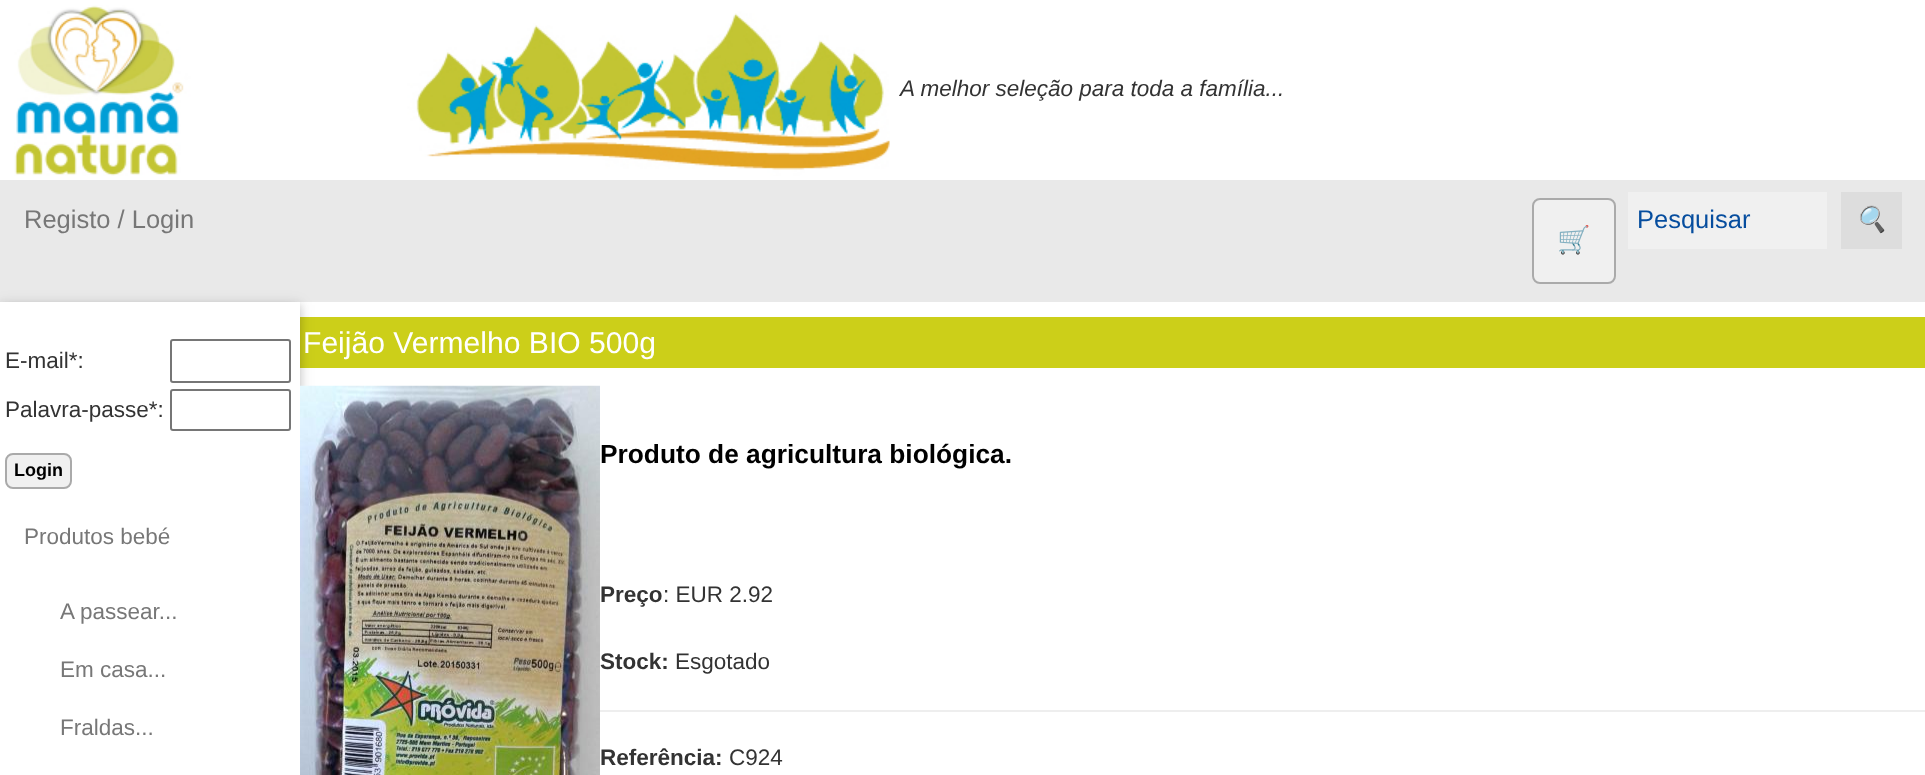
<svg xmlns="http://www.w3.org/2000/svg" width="1925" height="775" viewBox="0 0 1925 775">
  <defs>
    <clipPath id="clip1"><path d="M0 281H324V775H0ZM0 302H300V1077H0Z" clip-rule="evenodd"/></clipPath>
    <filter id="blur1" x="-50%" y="-200%" width="200%" height="500%"><feGaussianBlur stdDeviation="7.5"/></filter>
    <clipPath id="clip2"><path d="M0 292H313V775H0ZM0 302H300V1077H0Z" clip-rule="evenodd"/></clipPath>
    <filter id="blur2" x="-50%" y="-200%" width="200%" height="500%"><feGaussianBlur stdDeviation="4"/></filter>
  </defs>
  <rect width="100%" height="100%" fill="#ffffff"/>
  <image x="14" y="5" width="876" height="171" href="img1.png"/>
  <text x="900" y="96" font-family="Liberation Sans" font-size="22.5" font-style="italic" fill="#333333">A melhor seleção para toda a família...</text>
  <rect x="0" y="180" width="1925" height="122" fill="#e9e9e9"/>
  <text x="24" y="228" font-family="Liberation Sans" font-size="25.5" fill="#777777">Registo / Login</text>
  <rect x="1628" y="192" width="199" height="57" fill="#f0f0f0"/>
  <text x="1637" y="228" font-family="Liberation Sans" font-size="25.5" fill="#064d9e">Pesquisar</text>
  <rect x="1841" y="192" width="61" height="57" fill="#dddddd"/>
  <text x="1855" y="228" font-family="Noto Color Emoji" font-size="25.5" font-style="italic" fill="#000000">🔍</text>
  <rect x="1533" y="199" width="82" height="84" rx="7" fill="#f0f0f0" stroke="#aaaaaa" stroke-width="2"/>
  <text x="1557" y="249" font-family="Noto Color Emoji" font-size="27" fill="#777777">🛒</text>
  <rect x="300" y="317" width="1625" height="51" fill="#cccf19"/>
  <g clip-path="url(#clip1)">
    <rect x="0" y="305" width="300" height="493" fill="#000000" fill-opacity="0.12" filter="url(#blur1)"/>
  </g>
  <g clip-path="url(#clip2)">
    <rect x="0" y="305" width="300" height="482" fill="#000000" fill-opacity="0.16" filter="url(#blur2)"/>
  </g>
  <text x="5" y="368" font-family="Liberation Sans" font-size="22.5" fill="#333333">E-mail*:</text>
  <rect x="171" y="340" width="119" height="42" rx="2" fill="none" stroke="#767676" stroke-width="2"/>
  <text x="5" y="417" font-family="Liberation Sans" font-size="22.5" fill="#333333">Palavra-passe*:</text>
  <rect x="171" y="390" width="119" height="40" rx="2" fill="none" stroke="#767676" stroke-width="2"/>
  <rect x="6" y="454" width="65" height="34" rx="7" fill="#f0f0f0" stroke="#aaaaaa" stroke-width="2"/>
  <text x="14" y="476" font-family="Liberation Sans" font-size="18" font-weight="bold" fill="#000000">Login</text>
  <text x="24" y="544" font-family="Liberation Sans" font-size="22.5" fill="#777777">Produtos bebé</text>
  <text x="60" y="619" font-family="Liberation Sans" font-size="22.5" fill="#777777">A passear...</text>
  <text x="60" y="677" font-family="Liberation Sans" font-size="22.5" fill="#777777">Em casa...</text>
  <text x="60" y="735" font-family="Liberation Sans" font-size="22.5" fill="#777777">Fraldas...</text>
  <text x="303" y="353" font-family="Liberation Sans" font-size="30.1" fill="#ffffff">Feijão Vermelho BIO 500g</text>
  <image x="300" y="385" width="300" height="390" href="img2.png"/>
  <text x="600" y="463" font-family="Liberation Sans" font-size="26.3" font-weight="bold" fill="#000000">Produto de agricultura biológica.</text>
  <text x="600" y="602" font-family="Liberation Sans" font-size="22.5" font-weight="bold" fill="#333333">Preço</text>
  <text x="663" y="602" font-family="Liberation Sans" font-size="22.5" fill="#333333">: EUR 2.92</text>
  <text x="600" y="669" font-family="Liberation Sans" font-size="22.5" font-weight="bold" fill="#333333">Stock:</text>
  <text x="675" y="669" font-family="Liberation Sans" font-size="22.5" fill="#333333">Esgotado</text>
  <rect x="600" y="710" width="1325" height="2" fill="#eeeeee"/>
  <text x="600" y="765" font-family="Liberation Sans" font-size="22.5" font-weight="bold" fill="#333333">Referência:</text>
  <text x="729" y="765" font-family="Liberation Sans" font-size="22.5" fill="#333333">C924</text>
</svg>
